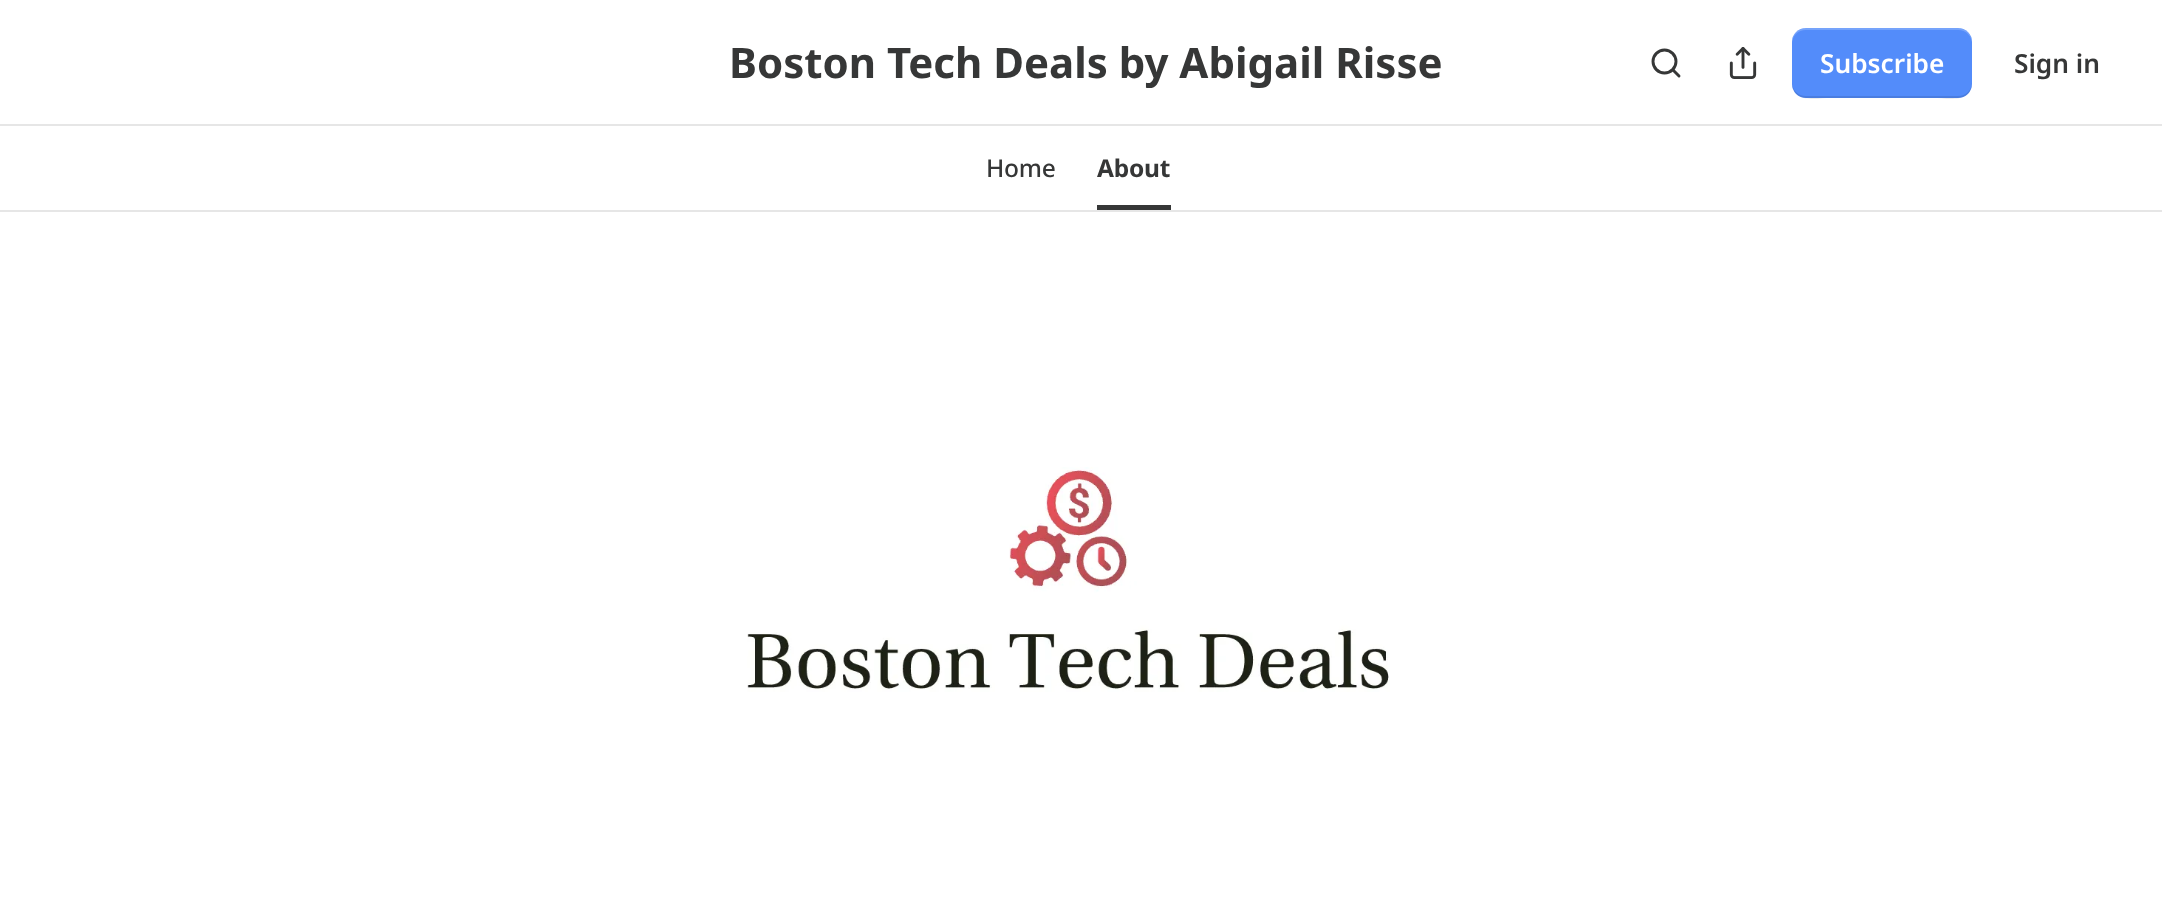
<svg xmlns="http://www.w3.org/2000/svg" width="2162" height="910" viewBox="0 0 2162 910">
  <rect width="100%" height="100%" fill="#ffffff"/>
  <text x="729" y="78" font-family="Noto Sans" font-size="42" font-weight="bold" fill="#363737">Boston Tech Deals by Abigail Risse</text>
  <circle cx="1664.5" cy="61.5" r="11.5" fill="none" stroke="#363737" stroke-width="2.9"/>
  <path d="M1679 76L1673 70" fill="none" stroke="#363737" stroke-width="2.9" stroke-linecap="round" stroke-linejoin="round"/>
  <image x="1729" y="47" width="28" height="32" href="img1.png"/>
  <rect x="1792" y="28" width="180" height="70" rx="14" fill="#538cfa"/>
  <path d="M1792 82C1792 104 1816 98 1831 98H1933C1948 98 1972 104 1972 82C1972 90 1966 96 1958 96H1806C1798 96 1792 90 1792 82Z" fill="#000000" fill-opacity="0.1"/>
  <path d="M1806 30H1958C1966 30 1972 36 1972 44C1972 22 1948 28 1933 28H1831C1816 28 1792 22 1792 44C1792 36 1798 30 1806 30Z" fill="#ffffff" fill-opacity="0.2"/>
  <text x="1820" y="73" font-family="Noto Sans" font-size="26.25" font-weight="600" fill="#ffffff">Subscribe</text>
  <text x="2014" y="73" font-family="Noto Sans" font-size="26.25" font-weight="600" fill="#363737">Sign in</text>
  <rect x="0" y="124" width="2162" height="2" fill="#e6e6e6"/>
  <rect x="0" y="210" width="2162" height="2" fill="#e6e6e6"/>
  <text x="986" y="177" font-family="Noto Sans" font-size="24.5" font-weight="500" letter-spacing="-0.25" fill="#363737">Home</text>
  <rect x="1097" y="205" width="74" height="5" fill="#363737"/>
  <text x="1097" y="177" font-family="Noto Sans" font-size="24.5" font-weight="bold" letter-spacing="-0.25" fill="#363737">About</text>
  <image x="747" y="467" width="643" height="225" href="img2.png"/>
</svg>
